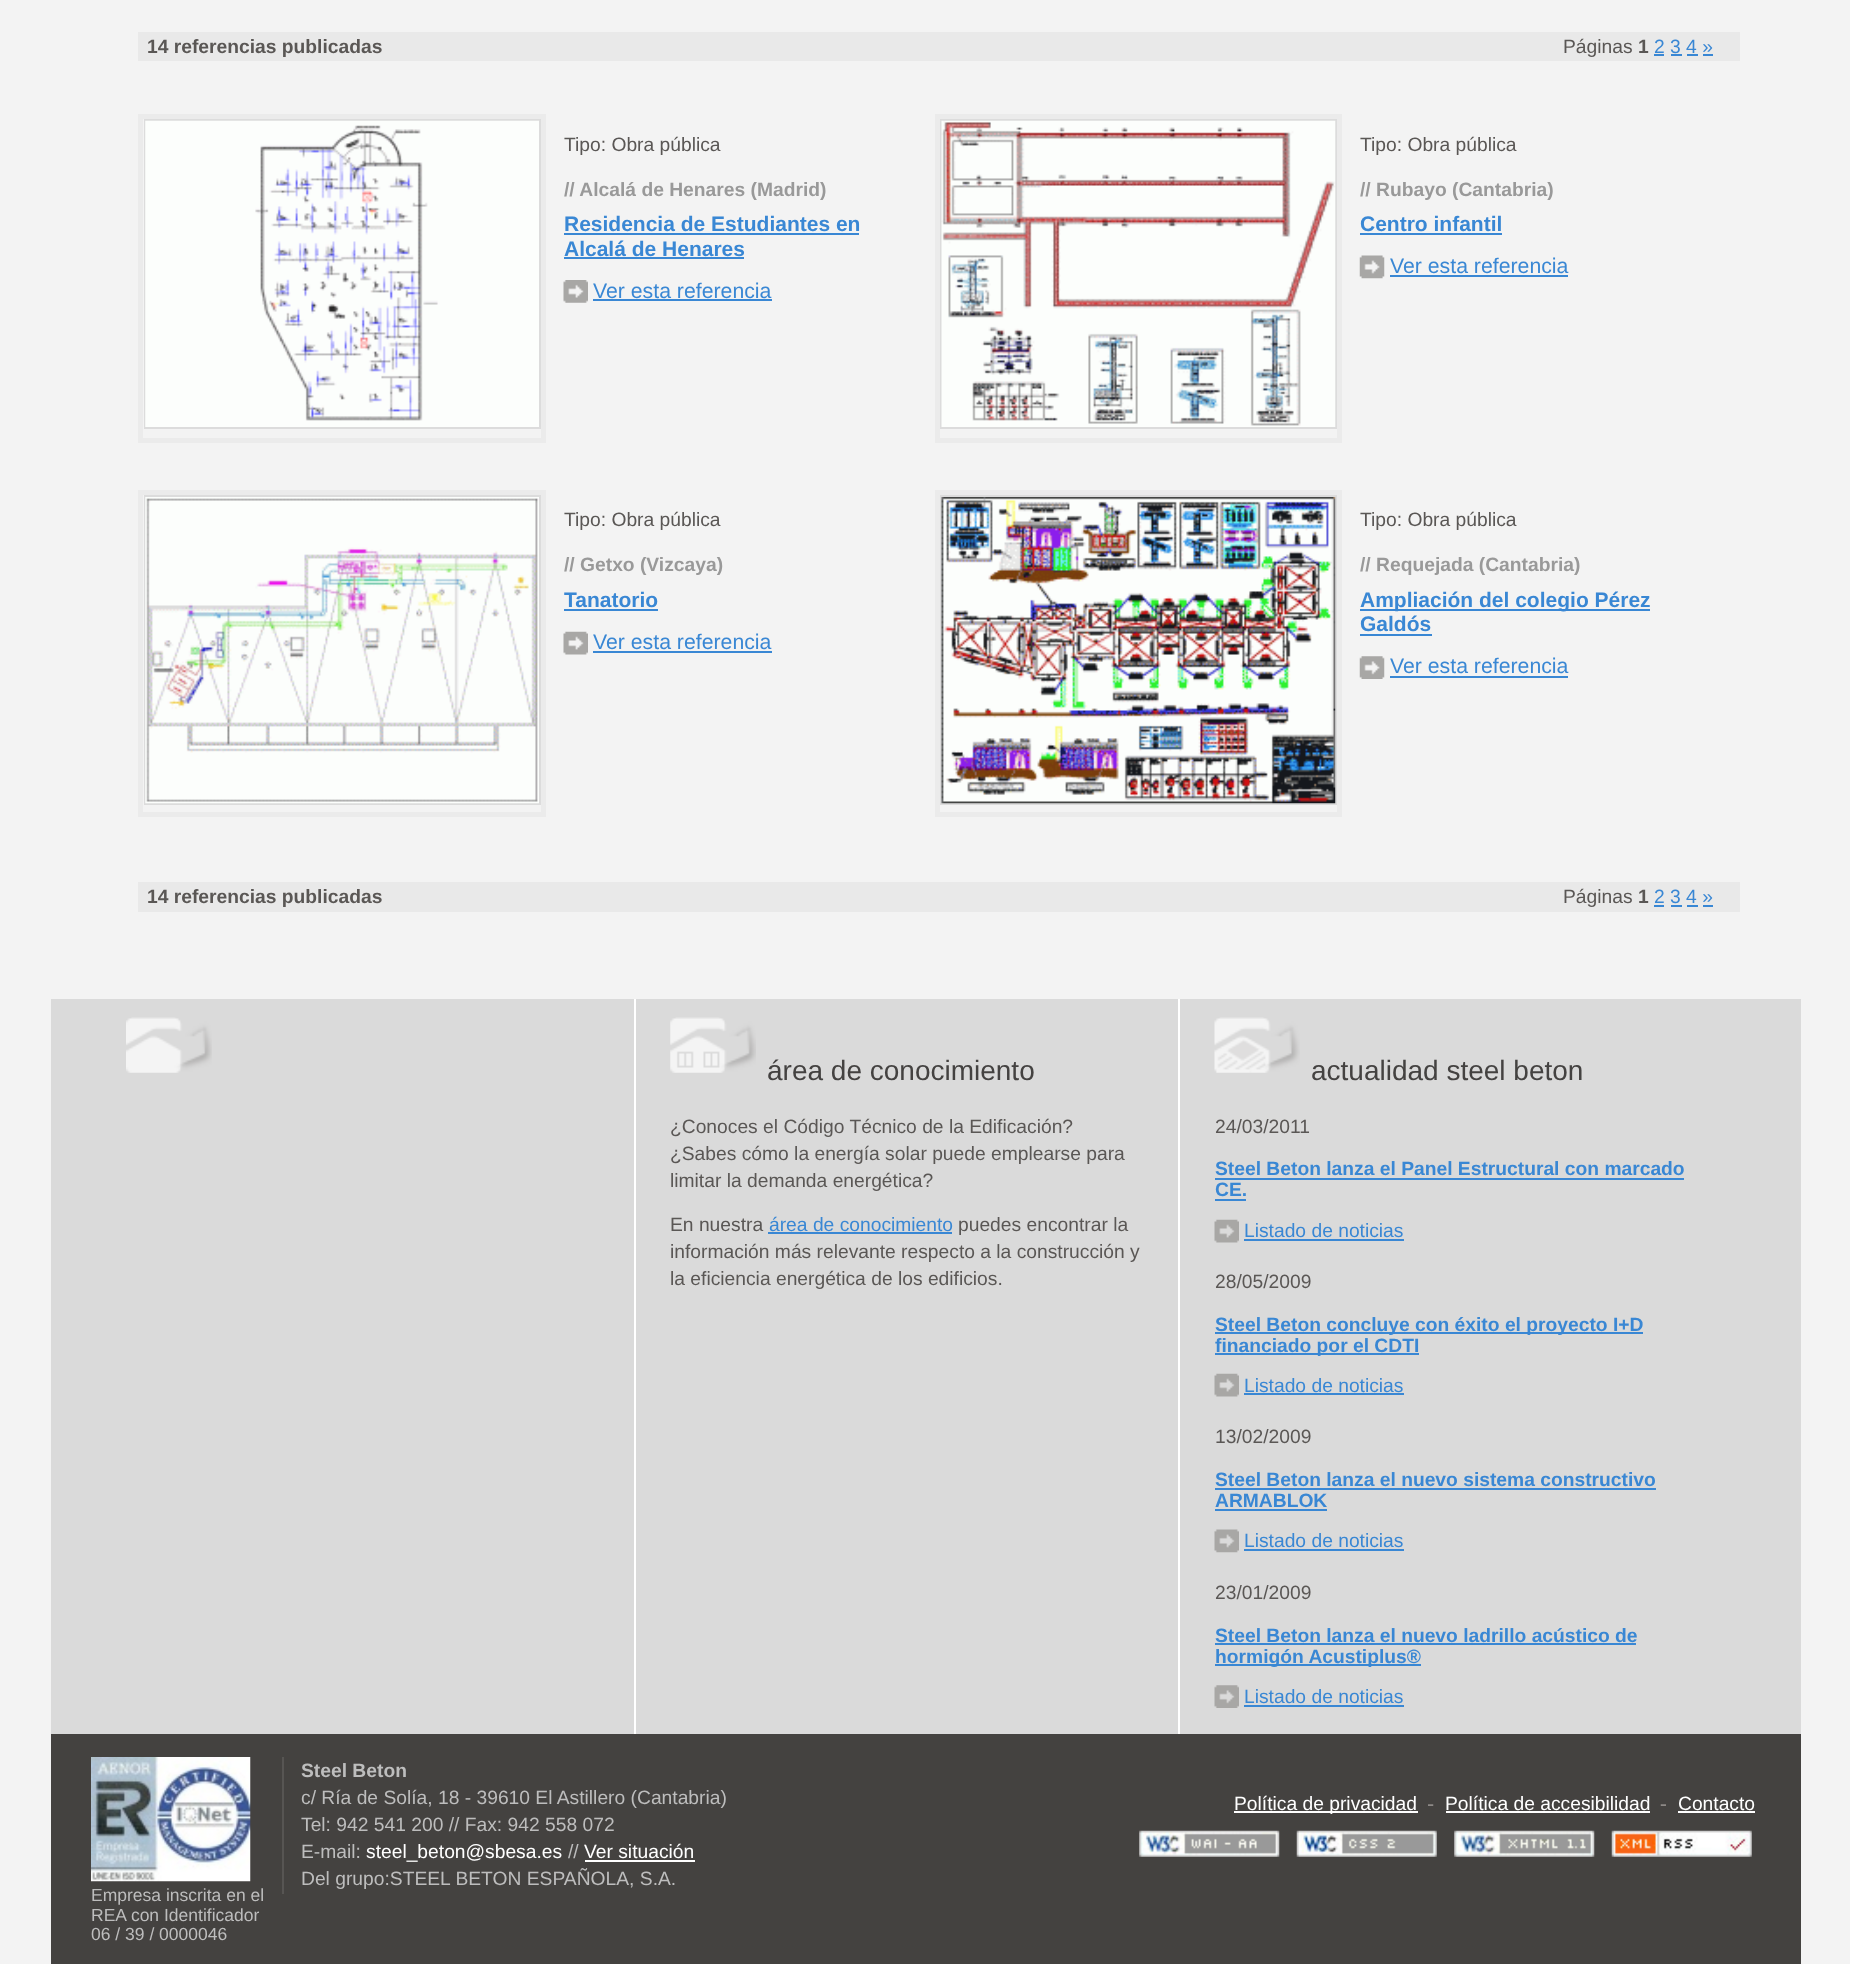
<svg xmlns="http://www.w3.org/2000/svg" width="1850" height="1964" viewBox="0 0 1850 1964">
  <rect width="100%" height="100%" fill="#f3f3f3"/>
  <rect x="138" y="32" width="1602" height="29" fill="#e9e9e9"/>
  <text x="147" y="53" font-family="Liberation Sans" font-size="19.25" font-weight="bold" fill="#5a5755">14 referencias publicadas</text>
  <text x="1563" y="53" font-family="Liberation Sans" font-size="19.25" fill="#5a5755">Páginas</text>
  <text x="1638" y="53" font-family="Liberation Sans" font-size="19.25" font-weight="bold" fill="#5a5755">1</text>
  <text x="1654" y="53" font-family="Liberation Sans" font-size="19.25" fill="#3987d4">2 3 4 »</text>
  <rect x="1654" y="54" width="10" height="2" fill="#3987d4"/>
  <rect x="1671" y="54" width="11" height="2" fill="#3987d4"/>
  <rect x="1687" y="54" width="11" height="2" fill="#3987d4"/>
  <rect x="1703" y="54" width="10" height="2" fill="#3987d4"/>
  <rect x="140.5" y="116.5" width="403" height="324" fill="none" stroke="#ebebeb" stroke-width="5"/>
  <rect x="145" y="120" width="395" height="308" fill="none" stroke="#dcdcdc" stroke-width="2"/>
  <image x="145" y="120" width="394" height="307" href="img1.png"/>
  <text x="564" y="151" font-family="Liberation Sans" font-size="19.25" fill="#5a5755">Tipo: Obra pública</text>
  <text x="564" y="196" font-family="Liberation Sans" font-size="19.25" font-weight="bold" fill="#999999">// Alcalá de Henares (Madrid)</text>
  <text x="564" y="231" font-family="Liberation Sans" font-size="21" font-weight="bold" fill="#3987d4">Residencia de Estudiantes en</text>
  <rect x="564" y="233" width="295" height="2" fill="#3987d4"/>
  <text x="564" y="256" font-family="Liberation Sans" font-size="21" font-weight="bold" fill="#3987d4">Alcalá de Henares</text>
  <rect x="564" y="257" width="180" height="2" fill="#3987d4"/>
  <image x="563" y="280" width="25" height="23" href="img2.png"/>
  <text x="593" y="298" font-family="Liberation Sans" font-size="21.25" fill="#3987d4">Ver esta referencia</text>
  <rect x="593" y="299" width="179" height="2" fill="#3987d4"/>
  <rect x="937.5" y="116.5" width="402" height="324" fill="none" stroke="#ebebeb" stroke-width="5"/>
  <rect x="941" y="120" width="395" height="308" fill="none" stroke="#dcdcdc" stroke-width="2"/>
  <image x="941" y="120" width="395" height="307" href="img3.png"/>
  <text x="1360" y="151" font-family="Liberation Sans" font-size="19.25" fill="#5a5755">Tipo: Obra pública</text>
  <text x="1360" y="196" font-family="Liberation Sans" font-size="19.25" font-weight="bold" fill="#999999">// Rubayo (Cantabria)</text>
  <text x="1360" y="231" font-family="Liberation Sans" font-size="21" font-weight="bold" fill="#3987d4">Centro infantil</text>
  <rect x="1360" y="233" width="142" height="2" fill="#3987d4"/>
  <image x="1359" y="255" width="26" height="24" href="img4.png"/>
  <text x="1390" y="273" font-family="Liberation Sans" font-size="21.25" fill="#3987d4">Ver esta referencia</text>
  <rect x="1390" y="275" width="178" height="2" fill="#3987d4"/>
  <rect x="140.5" y="492.5" width="403" height="322" fill="none" stroke="#ebebeb" stroke-width="5"/>
  <rect x="145" y="496" width="395" height="308" fill="none" stroke="#dcdcdc" stroke-width="2"/>
  <image x="145" y="497" width="394" height="307" href="img5.png"/>
  <text x="564" y="526" font-family="Liberation Sans" font-size="19.25" fill="#5a5755">Tipo: Obra pública</text>
  <text x="564" y="571" font-family="Liberation Sans" font-size="19.25" font-weight="bold" fill="#999999">// Getxo (Vizcaya)</text>
  <text x="564" y="607" font-family="Liberation Sans" font-size="21" font-weight="bold" fill="#3987d4">Tanatorio</text>
  <rect x="564" y="609" width="94" height="2" fill="#3987d4"/>
  <image x="563" y="631" width="25" height="24" href="img6.png"/>
  <text x="593" y="649" font-family="Liberation Sans" font-size="21.25" fill="#3987d4">Ver esta referencia</text>
  <rect x="593" y="651" width="179" height="2" fill="#3987d4"/>
  <rect x="937.5" y="492.5" width="402" height="322" fill="none" stroke="#ebebeb" stroke-width="5"/>
  <rect x="941" y="496" width="395" height="308" fill="none" stroke="#dcdcdc" stroke-width="2"/>
  <image x="941" y="497" width="395" height="307" href="img7.png"/>
  <text x="1360" y="526" font-family="Liberation Sans" font-size="19.25" fill="#5a5755">Tipo: Obra pública</text>
  <text x="1360" y="571" font-family="Liberation Sans" font-size="19.25" font-weight="bold" fill="#999999">// Requejada (Cantabria)</text>
  <rect x="1360" y="609" width="290" height="2" fill="#3987d4"/>
  <text x="1360" y="607" font-family="Liberation Sans" font-size="21" font-weight="bold" fill="#3987d4">Ampliación del colegio Pérez</text>
  <text x="1360" y="631" font-family="Liberation Sans" font-size="21" font-weight="bold" fill="#3987d4">Galdós</text>
  <rect x="1360" y="634" width="72" height="2" fill="#3987d4"/>
  <image x="1359" y="656" width="26" height="23" href="img8.png"/>
  <text x="1390" y="673" font-family="Liberation Sans" font-size="21.25" fill="#3987d4">Ver esta referencia</text>
  <rect x="1390" y="676" width="178" height="2" fill="#3987d4"/>
  <rect x="138" y="882" width="1602" height="30" fill="#e9e9e9"/>
  <text x="147" y="903" font-family="Liberation Sans" font-size="19.25" font-weight="bold" fill="#5a5755">14 referencias publicadas</text>
  <text x="1563" y="903" font-family="Liberation Sans" font-size="19.25" fill="#5a5755">Páginas</text>
  <text x="1638" y="903" font-family="Liberation Sans" font-size="19.25" font-weight="bold" fill="#5a5755">1</text>
  <text x="1654" y="903" font-family="Liberation Sans" font-size="19.25" fill="#3987d4">2 3 4 »</text>
  <rect x="1654" y="905" width="10" height="2" fill="#3987d4"/>
  <rect x="1671" y="905" width="11" height="2" fill="#3987d4"/>
  <rect x="1687" y="905" width="11" height="2" fill="#3987d4"/>
  <rect x="1703" y="905" width="10" height="2" fill="#3987d4"/>
  <rect x="51" y="999" width="1750" height="735" fill="#dadada"/>
  <image x="126" y="1017" width="86" height="56" href="img9.png"/>
  <rect x="634" y="999" width="2" height="735" fill="#ffffff"/>
  <image x="670" y="1017" width="86" height="56" href="img10.png"/>
  <rect x="1178" y="999" width="2" height="735" fill="#ffffff"/>
  <text x="767" y="1080" font-family="Liberation Sans" font-size="28" fill="#444241">área de conocimiento</text>
  <text x="670" y="1133" font-family="Liberation Sans" font-size="19.25" fill="#5a5755">¿Conoces el Código Técnico de la Edificación?</text>
  <text x="670" y="1160" font-family="Liberation Sans" font-size="19.25" fill="#5a5755">¿Sabes cómo la energía solar puede emplearse para</text>
  <text x="670" y="1187" font-family="Liberation Sans" font-size="19.25" fill="#5a5755">limitar la demanda energética?</text>
  <text x="670" y="1231" font-family="Liberation Sans" font-size="19.25" fill="#5a5755">En nuestra</text>
  <text x="769" y="1231" font-family="Liberation Sans" font-size="19.25" fill="#3987d4">área de conocimiento</text>
  <rect x="768" y="1232" width="184" height="2" fill="#3987d4"/>
  <text x="958" y="1231" font-family="Liberation Sans" font-size="19.25" fill="#5a5755">puedes encontrar la</text>
  <text x="670" y="1258" font-family="Liberation Sans" font-size="19.25" fill="#5a5755">información más relevante respecto a la construcción y</text>
  <text x="670" y="1285" font-family="Liberation Sans" font-size="19.25" fill="#5a5755">la eficiencia energética de los edificios.</text>
  <image x="1214" y="1017" width="86" height="56" href="img11.png"/>
  <text x="1311" y="1080" font-family="Liberation Sans" font-size="28" fill="#444241">actualidad steel beton</text>
  <text x="1215" y="1133" font-family="Liberation Sans" font-size="19.25" fill="#5a5755">24/03/2011</text>
  <text x="1215" y="1175" font-family="Liberation Sans" font-size="19.25" font-weight="bold" fill="#3987d4">Steel Beton lanza el Panel Estructural con marcado</text>
  <rect x="1215" y="1178" width="469" height="2" fill="#3987d4"/>
  <text x="1215" y="1196" font-family="Liberation Sans" font-size="19.25" font-weight="bold" fill="#3987d4">CE.</text>
  <rect x="1215" y="1199" width="31" height="2" fill="#3987d4"/>
  <image x="1214" y="1219" width="25" height="24" href="img12.png"/>
  <text x="1244" y="1237" font-family="Liberation Sans" font-size="19.25" fill="#3987d4">Listado de noticias</text>
  <rect x="1244" y="1239" width="160" height="2" fill="#3987d4"/>
  <text x="1215" y="1288" font-family="Liberation Sans" font-size="19.25" fill="#5a5755">28/05/2009</text>
  <rect x="1215" y="1332" width="428" height="2" fill="#3987d4"/>
  <text x="1215" y="1331" font-family="Liberation Sans" font-size="19.25" font-weight="bold" fill="#3987d4">Steel Beton concluye con éxito el proyecto I+D</text>
  <rect x="1215" y="1353" width="204" height="2" fill="#3987d4"/>
  <text x="1215" y="1352" font-family="Liberation Sans" font-size="19.25" font-weight="bold" fill="#3987d4">financiado por el CDTI</text>
  <image x="1214" y="1373" width="25" height="24" href="img12.png"/>
  <text x="1244" y="1392" font-family="Liberation Sans" font-size="19.25" fill="#3987d4">Listado de noticias</text>
  <rect x="1244" y="1393" width="160" height="2" fill="#3987d4"/>
  <text x="1215" y="1443" font-family="Liberation Sans" font-size="19.25" fill="#5a5755">13/02/2009</text>
  <text x="1215" y="1486" font-family="Liberation Sans" font-size="19.25" font-weight="bold" fill="#3987d4">Steel Beton lanza el nuevo sistema constructivo</text>
  <rect x="1215" y="1488" width="441" height="2" fill="#3987d4"/>
  <text x="1215" y="1507" font-family="Liberation Sans" font-size="19.25" font-weight="bold" fill="#3987d4">ARMABLOK</text>
  <rect x="1215" y="1509" width="112" height="2" fill="#3987d4"/>
  <image x="1214" y="1529" width="25" height="24" href="img13.png"/>
  <text x="1244" y="1547" font-family="Liberation Sans" font-size="19.25" fill="#3987d4">Listado de noticias</text>
  <rect x="1244" y="1549" width="160" height="2" fill="#3987d4"/>
  <text x="1215" y="1599" font-family="Liberation Sans" font-size="19.25" fill="#5a5755">23/01/2009</text>
  <text x="1215" y="1642" font-family="Liberation Sans" font-size="19.25" font-weight="bold" fill="#3987d4">Steel Beton lanza el nuevo ladrillo acústico de</text>
  <rect x="1215" y="1643" width="421" height="2" fill="#3987d4"/>
  <rect x="1215" y="1664" width="206" height="2" fill="#3987d4"/>
  <text x="1215" y="1663" font-family="Liberation Sans" font-size="19.25" font-weight="bold" fill="#3987d4">hormigón Acustiplus®</text>
  <image x="1214" y="1685" width="25" height="23" href="img14.png"/>
  <text x="1244" y="1703" font-family="Liberation Sans" font-size="19.25" fill="#3987d4">Listado de noticias</text>
  <rect x="1244" y="1705" width="160" height="2" fill="#3987d4"/>
  <rect x="51" y="1734" width="1750" height="230" fill="#444240"/>
  <rect x="282" y="1757" width="2" height="137" fill="#575553"/>
  <text x="301" y="1777" font-family="Liberation Sans" font-size="19.25" font-weight="bold" fill="#bdbdbd">Steel Beton</text>
  <text x="301" y="1804" font-family="Liberation Sans" font-size="19.25" fill="#bdbdbd">c/ Ría de Solía, 18 - 39610 El Astillero (Cantabria)</text>
  <text x="301" y="1831" font-family="Liberation Sans" font-size="19.25" fill="#bdbdbd">Tel: 942 541 200 // Fax: 942 558 072</text>
  <text x="301" y="1858" font-family="Liberation Sans" font-size="19.25" fill="#bdbdbd">E-mail:</text>
  <text x="366" y="1858" font-family="Liberation Sans" font-size="19.25" fill="#ffffff">steel_beton@sbesa.es</text>
  <text x="568" y="1858" font-family="Liberation Sans" font-size="19.25" fill="#bdbdbd">//</text>
  <text x="584" y="1858" font-family="Liberation Sans" font-size="19.25" fill="#ffffff">Ver situación</text>
  <rect x="585" y="1860" width="110" height="2" fill="#ffffff"/>
  <text x="301" y="1885" font-family="Liberation Sans" font-size="19.25" fill="#bdbdbd">Del grupo:STEEL BETON ESPAÑOLA, S.A.</text>
  <rect x="1234" y="1811" width="184" height="2" fill="#ffffff"/>
  <text x="1234" y="1810" font-family="Liberation Sans" font-size="19.25" fill="#ffffff">Política de privacidad</text>
  <image x="1428" y="1804" width="6" height="2" href="img15.png"/>
  <text x="1445" y="1810" font-family="Liberation Sans" font-size="19.25" fill="#ffffff">Política de accesibilidad</text>
  <rect x="1446" y="1811" width="204" height="2" fill="#ffffff"/>
  <image x="1660" y="1804" width="6" height="2" href="img16.png"/>
  <text x="1678" y="1810" font-family="Liberation Sans" font-size="19.25" fill="#ffffff">Contacto</text>
  <rect x="1678" y="1811" width="77" height="2" fill="#ffffff"/>
  <image x="1139" y="1830" width="141" height="27" href="img17.png"/>
  <image x="1296" y="1830" width="141" height="27" href="img18.png"/>
  <image x="1454" y="1830" width="141" height="27" href="img19.png"/>
  <image x="1611" y="1830" width="141" height="27" href="img20.png"/>
  <image x="91" y="1757" width="160" height="125" href="img21.png"/>
  <text x="91" y="1901" font-family="Liberation Sans" font-size="17.5" fill="#bdbdbd">Empresa inscrita en el</text>
  <text x="91" y="1921" font-family="Liberation Sans" font-size="17.5" fill="#bdbdbd">REA con Identificador</text>
  <text x="91" y="1940" font-family="Liberation Sans" font-size="17.5" fill="#bdbdbd">06 / 39 / 0000046</text>
</svg>
